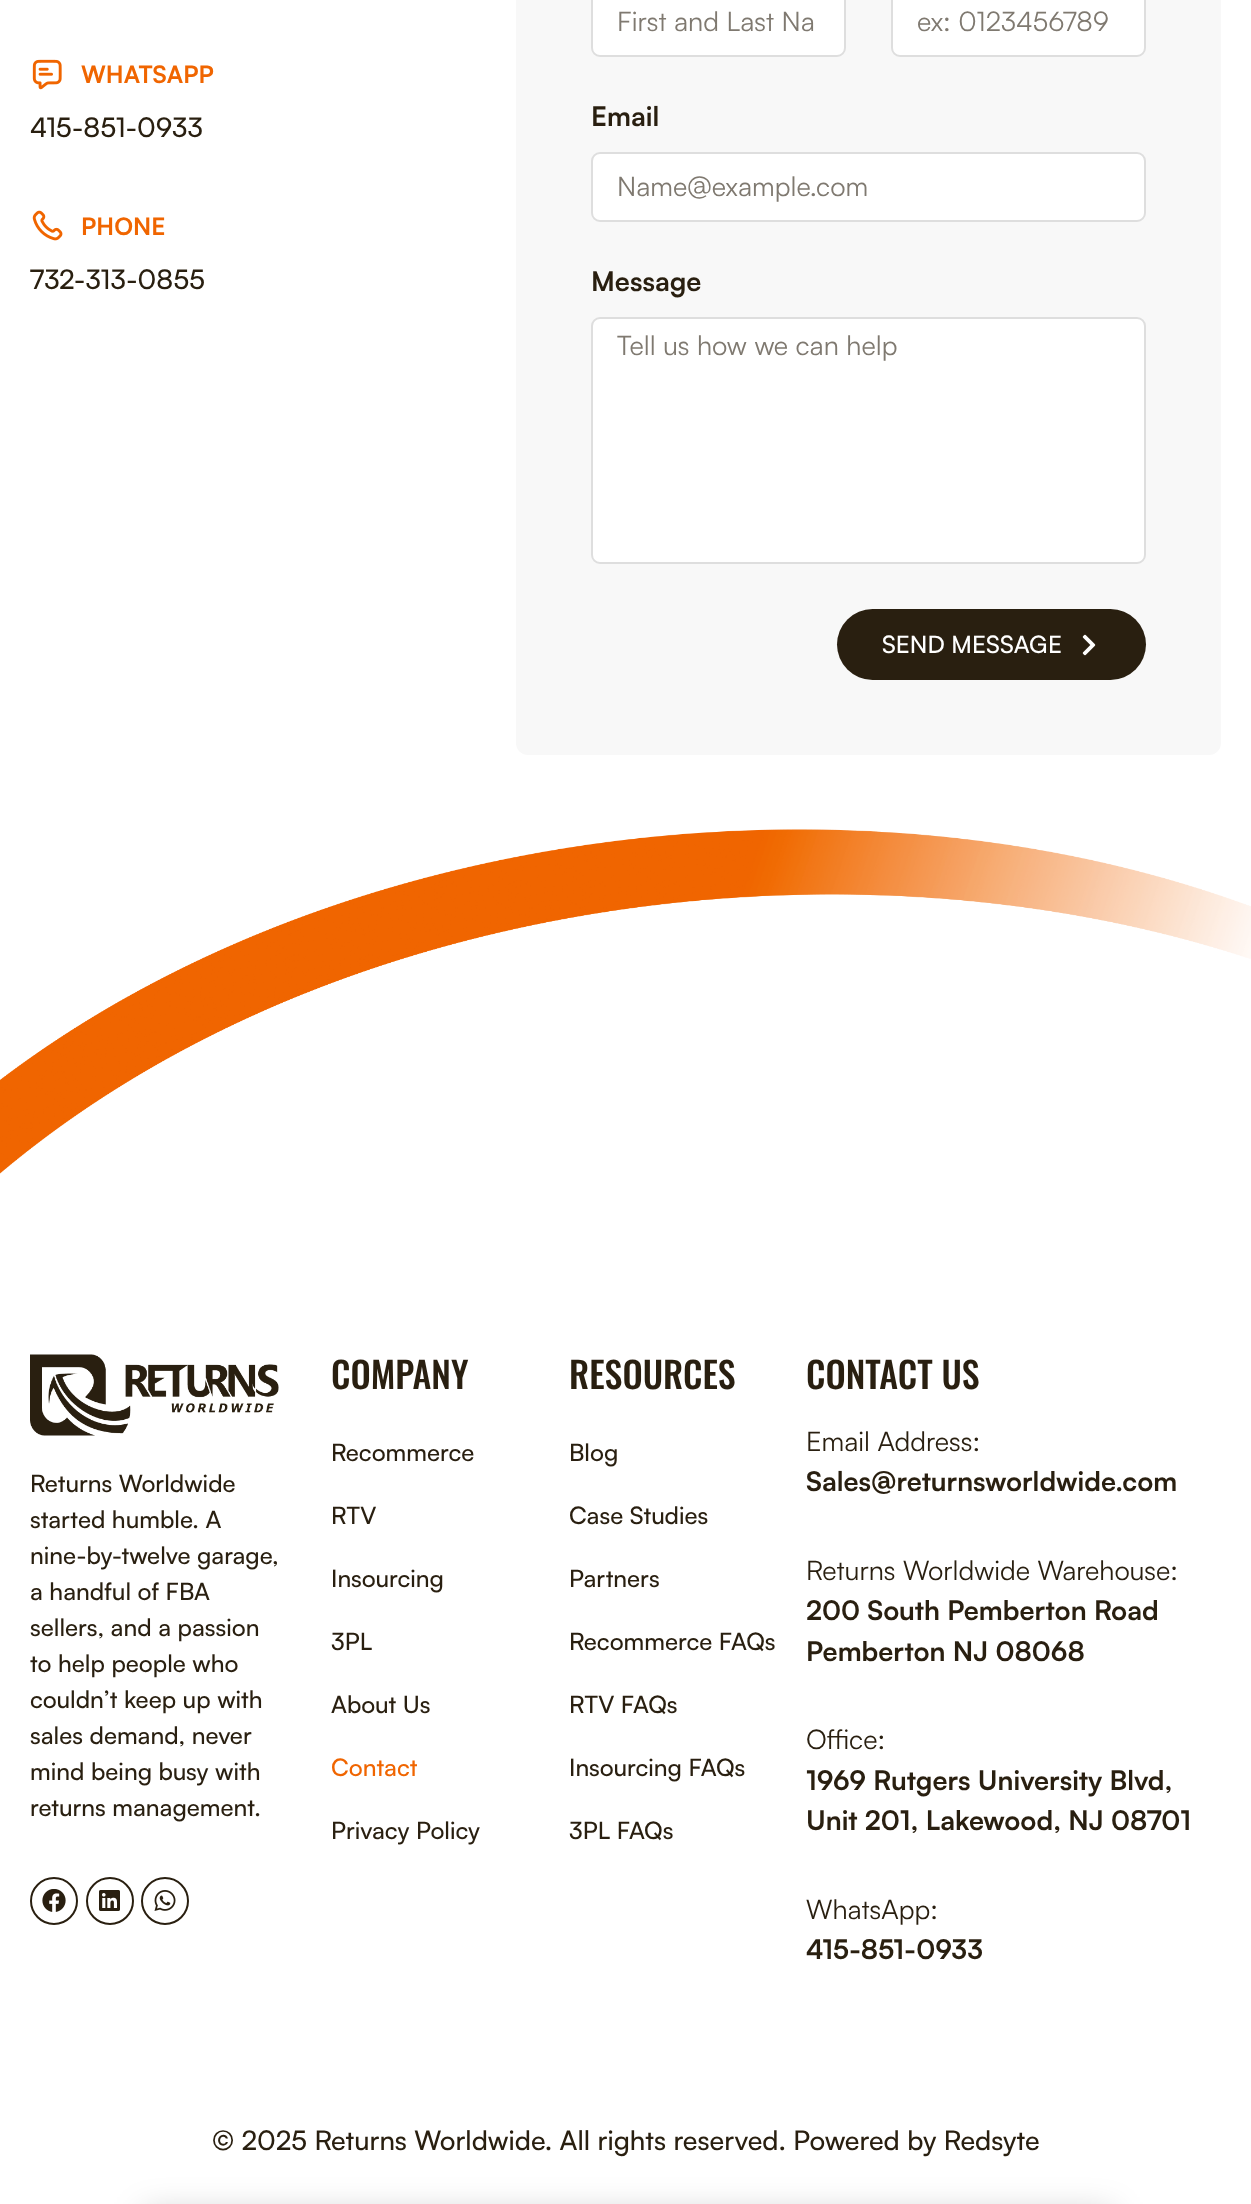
<svg xmlns="http://www.w3.org/2000/svg" width="1251" height="2204" viewBox="0 0 1251 2204">
  <defs>
    <filter id="blur1" x="-50%" y="-200%" width="200%" height="500%"><feGaussianBlur stdDeviation="17"/></filter>
  </defs>
  <rect width="100%" height="100%" fill="#ffffff"/>
  <image x="32" y="59" width="30" height="31" href="img1.png"/>
  <text x="81" y="83" font-family="Satoshi" font-size="24" font-weight="bold" fill="#f06500">WHATSAPP</text>
  <text x="30" y="137" font-family="Satoshi" font-size="27" font-weight="500" fill="#291f10">415-851-0933</text>
  <image x="32" y="210" width="31" height="31" href="img2.png"/>
  <text x="81" y="235" font-family="Satoshi" font-size="24" font-weight="bold" fill="#f06500">PHONE</text>
  <text x="30" y="289" font-family="Satoshi" font-size="27" font-weight="500" fill="#291f10">732-313-0855</text>
  <rect x="516" y="-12" width="705" height="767" rx="12" fill="#f8f8f8"/>
  <rect x="592" y="-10" width="253" height="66" rx="8" fill="#ffffff" stroke="#dedede" stroke-width="2"/>
  <text x="617" y="31" font-family="Satoshi" font-size="27" fill="#7f7970">First and Last Na</text>
  <rect x="892" y="-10" width="253" height="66" rx="8" fill="#ffffff" stroke="#dedede" stroke-width="2"/>
  <text x="917" y="31" font-family="Satoshi" font-size="27" fill="#7f7970">ex: 0123456789</text>
  <text x="591" y="126" font-family="Satoshi" font-size="27" font-weight="bold" fill="#291f10">Email</text>
  <rect x="592" y="153" width="553" height="68" rx="8" fill="#ffffff" stroke="#dedede" stroke-width="2"/>
  <text x="617" y="196" font-family="Satoshi" font-size="27" fill="#7f7970">Name@example.com</text>
  <text x="591" y="291" font-family="Satoshi" font-size="27" font-weight="bold" fill="#291f10">Message</text>
  <rect x="592" y="318" width="553" height="245" rx="8" fill="#ffffff" stroke="#dedede" stroke-width="2"/>
  <text x="617" y="355" font-family="Satoshi" font-size="27" fill="#7f7970">Tell us how we can help</text>
  <rect x="837" y="609" width="309" height="71" rx="35.5" fill="#291f10"/>
  <text x="882" y="653" font-family="Satoshi" font-size="24" font-weight="500" fill="#ffffff">SEND MESSAGE</text>
  <image x="1082" y="634" width="14" height="22" href="img3.png"/>
  <image x="0" y="829" width="1251" height="345" href="img4.png"/>
  <image x="30" y="1354" width="249" height="82" href="img5.png"/>
  <text x="30" y="1492" font-family="Satoshi" font-size="24" font-weight="500" fill="#291f10">Returns Worldwide</text>
  <text x="30" y="1528" font-family="Satoshi" font-size="24" font-weight="500" fill="#291f10">started humble. A</text>
  <text x="30" y="1564" font-family="Satoshi" font-size="24" font-weight="500" fill="#291f10">nine-by-twelve garage,</text>
  <text x="30" y="1600" font-family="Satoshi" font-size="24" font-weight="500" fill="#291f10">a handful of FBA</text>
  <text x="30" y="1636" font-family="Satoshi" font-size="24" font-weight="500" fill="#291f10">sellers, and a passion</text>
  <text x="30" y="1672" font-family="Satoshi" font-size="24" font-weight="500" fill="#291f10">to help people who</text>
  <text x="30" y="1708" font-family="Satoshi" font-size="24" font-weight="500" fill="#291f10">couldn’t keep up with</text>
  <text x="30" y="1744" font-family="Satoshi" font-size="24" font-weight="500" fill="#291f10">sales demand, never</text>
  <text x="30" y="1780" font-family="Satoshi" font-size="24" font-weight="500" fill="#291f10">mind being busy with</text>
  <text x="30" y="1816" font-family="Satoshi" font-size="24" font-weight="500" fill="#291f10">returns management.</text>
  <circle cx="54" cy="1901" r="23" fill="none" stroke="#291f10" stroke-width="2"/>
  <image x="42" y="1889" width="24" height="23" href="img6.png"/>
  <circle cx="110" cy="1901" r="23" fill="none" stroke="#291f10" stroke-width="2"/>
  <image x="99" y="1890" width="21" height="21" href="img7.png"/>
  <circle cx="165" cy="1901" r="23" fill="none" stroke="#291f10" stroke-width="2"/>
  <image x="154" y="1890" width="22" height="21" href="img8.png"/>
  <text x="331" y="1389" font-family="Oswald" font-size="36" font-weight="500" fill="#291f10">COMPANY</text>
  <text x="331" y="1461" font-family="Satoshi" font-size="24" font-weight="500" fill="#291f10">Recommerce</text>
  <text x="331" y="1524" font-family="Satoshi" font-size="24" font-weight="500" fill="#291f10">RTV</text>
  <text x="331" y="1587" font-family="Satoshi" font-size="24" font-weight="500" fill="#291f10">Insourcing</text>
  <text x="331" y="1650" font-family="Satoshi" font-size="24" font-weight="500" fill="#291f10">3PL</text>
  <text x="331" y="1713" font-family="Satoshi" font-size="24" font-weight="500" fill="#291f10">About Us</text>
  <text x="331" y="1776" font-family="Satoshi" font-size="24" font-weight="500" fill="#f06500">Contact</text>
  <text x="331" y="1839" font-family="Satoshi" font-size="24" font-weight="500" fill="#291f10">Privacy Policy</text>
  <text x="569" y="1389" font-family="Oswald" font-size="36" font-weight="500" fill="#291f10">RESOURCES</text>
  <text x="569" y="1461" font-family="Satoshi" font-size="24" font-weight="500" fill="#291f10">Blog</text>
  <text x="569" y="1524" font-family="Satoshi" font-size="24" font-weight="500" fill="#291f10">Case Studies</text>
  <text x="569" y="1587" font-family="Satoshi" font-size="24" font-weight="500" fill="#291f10">Partners</text>
  <text x="569" y="1650" font-family="Satoshi" font-size="24" font-weight="500" fill="#291f10">Recommerce FAQs</text>
  <text x="569" y="1713" font-family="Satoshi" font-size="24" font-weight="500" fill="#291f10">RTV FAQs</text>
  <text x="569" y="1776" font-family="Satoshi" font-size="24" font-weight="500" fill="#291f10">Insourcing FAQs</text>
  <text x="569" y="1839" font-family="Satoshi" font-size="24" font-weight="500" fill="#291f10">3PL FAQs</text>
  <text x="806" y="1389" font-family="Oswald" font-size="36" font-weight="500" fill="#291f10">CONTACT US</text>
  <text x="806" y="1451" font-family="Satoshi" font-size="27" fill="#291f10">Email Address:</text>
  <text x="806" y="1491" font-family="Satoshi" font-size="27" font-weight="bold" fill="#291f10">Sales@returnsworldwide.com</text>
  <text x="806" y="1580" font-family="Satoshi" font-size="27" fill="#291f10">Returns Worldwide Warehouse:</text>
  <text x="806" y="1620" font-family="Satoshi" font-size="27" font-weight="bold" fill="#291f10">200 South Pemberton Road</text>
  <text x="806" y="1661" font-family="Satoshi" font-size="27" font-weight="bold" fill="#291f10">Pemberton NJ 08068</text>
  <text x="806" y="1749" font-family="Satoshi" font-size="27" fill="#291f10">Office:</text>
  <text x="806" y="1790" font-family="Satoshi" font-size="27" font-weight="bold" fill="#291f10">1969 Rutgers University Blvd,</text>
  <text x="806" y="1830" font-family="Satoshi" font-size="27" font-weight="bold" fill="#291f10">Unit 201, Lakewood, NJ 08701</text>
  <text x="806" y="1919" font-family="Satoshi" font-size="27" fill="#291f10">WhatsApp:</text>
  <text x="806" y="1959" font-family="Satoshi" font-size="27" font-weight="bold" fill="#291f10">415-851-0933</text>
  <text x="212" y="2150" font-family="Satoshi" font-size="27" font-weight="500" fill="#291f10">© 2025 Returns Worldwide. All rights reserved. Powered by Redsyte</text>
  <rect x="144" y="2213" width="969" height="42" fill="#000000" fill-opacity="0.2" filter="url(#blur1)"/>
</svg>
